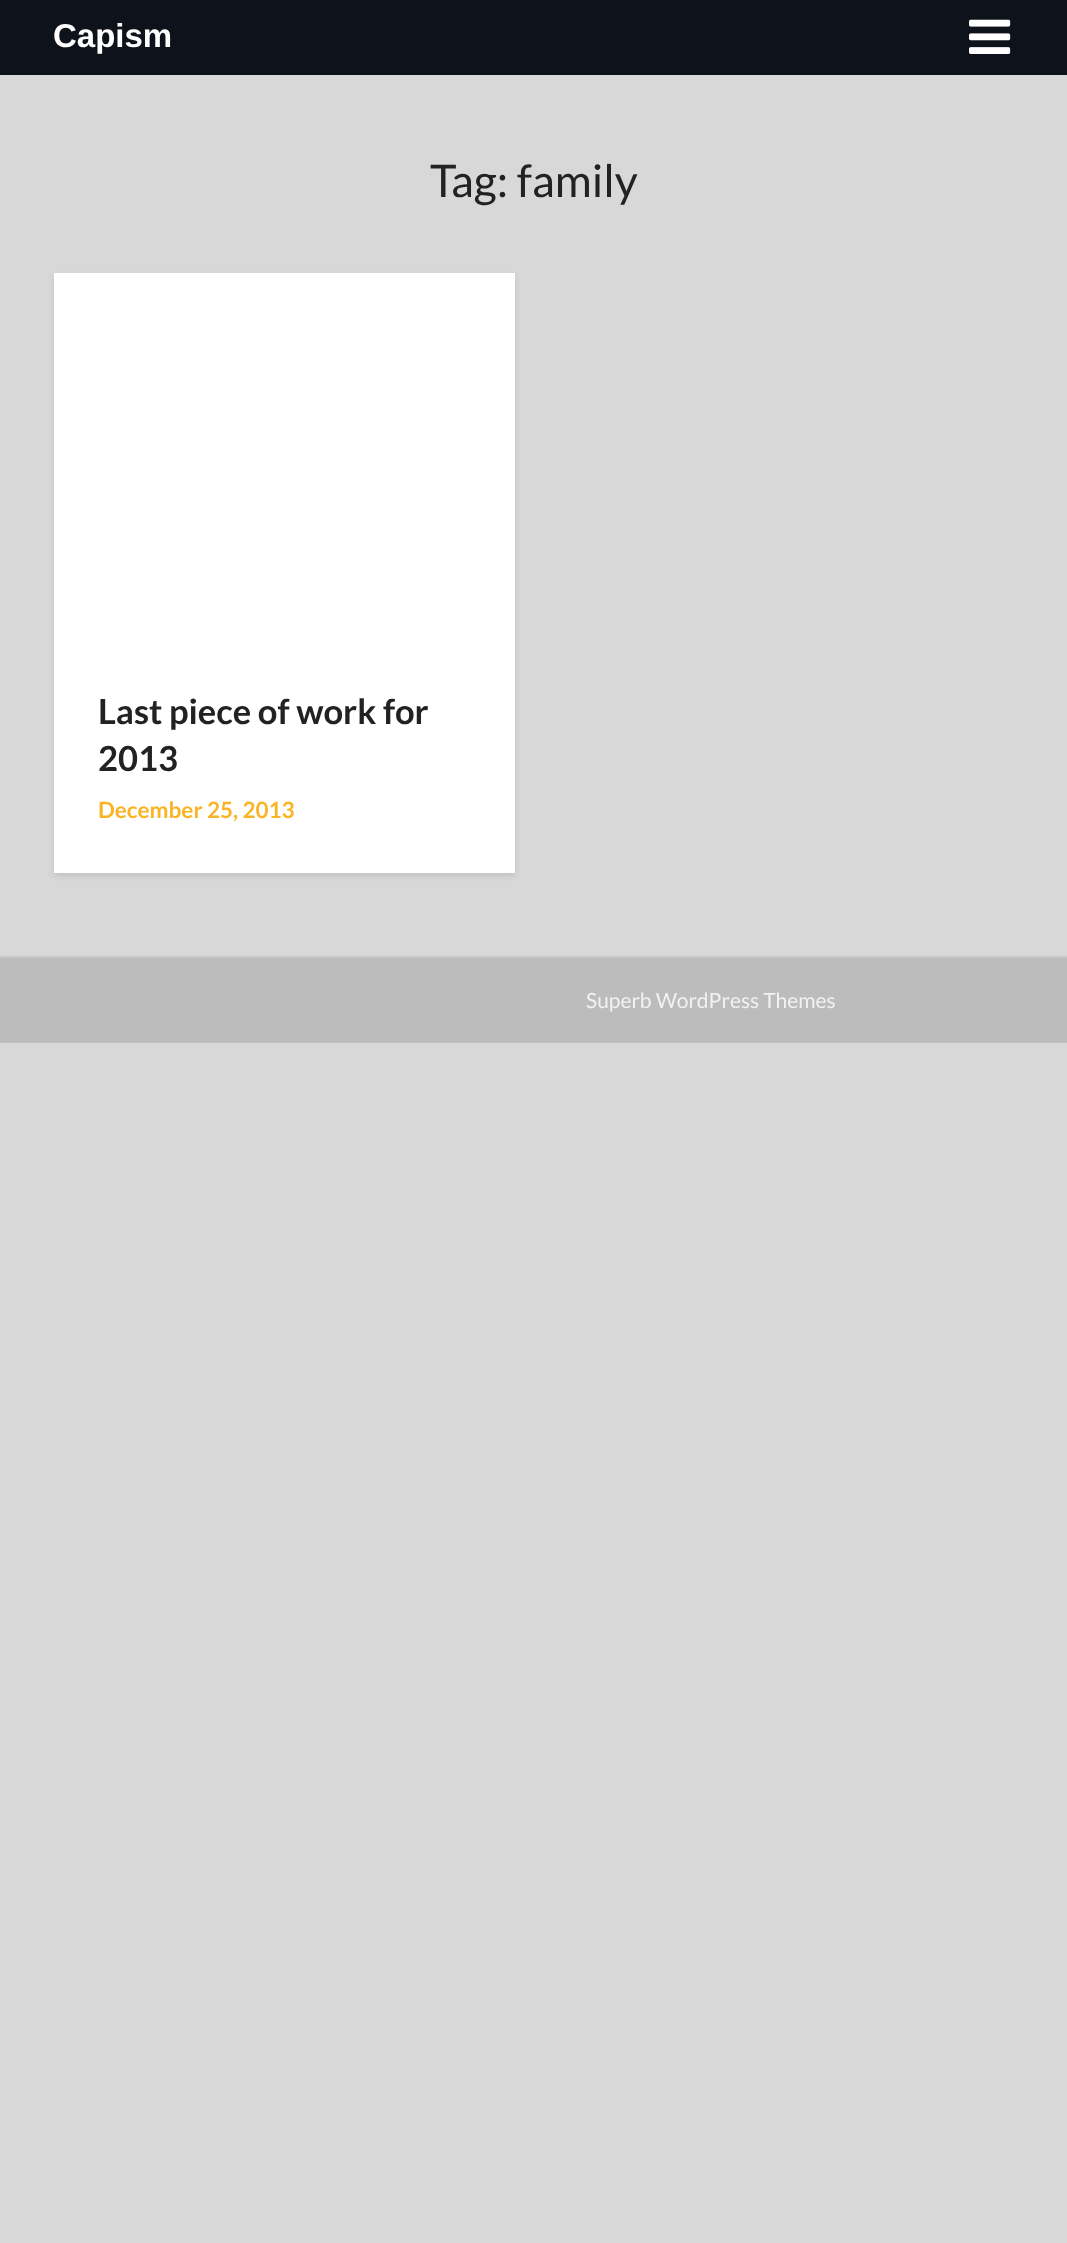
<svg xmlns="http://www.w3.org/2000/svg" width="1067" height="2243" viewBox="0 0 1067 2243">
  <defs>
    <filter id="blur1" x="-50%" y="-200%" width="200%" height="500%"><feGaussianBlur stdDeviation="3"/></filter>
  </defs>
  <rect width="100%" height="100%" fill="#d8d8d8"/>
  <rect x="0" y="0" width="1067" height="75" fill="#0e121a"/>
  <text x="53" y="47" font-family="Liberation Sans" font-size="33" font-weight="bold" fill="#ffffff">Capism</text>
  <image x="969" y="19" width="42" height="35" href="img1.png"/>
  <text x="430" y="197" font-family="Lato" font-size="45" fill="#222222">Tag: family</text>
  <rect x="54" y="276" width="461" height="600" fill="#000000" fill-opacity="0.1" filter="url(#blur1)"/>
  <rect x="54" y="273" width="461" height="600" fill="#ffffff"/>
  <text x="98" y="724" font-family="Lato" font-size="34.5" font-weight="bold" fill="#222222">Last piece of work for</text>
  <text x="98" y="771" font-family="Lato" font-size="34.5" font-weight="bold" fill="#222222">2013</text>
  <text x="98" y="818" font-family="Lato" font-size="22.5" font-weight="bold" fill="#fab526">December 25, 2013</text>
  <rect x="0" y="958" width="1067" height="85" fill="#bcbcbc"/>
  <rect x="0" y="956" width="1067" height="2" fill="#c7c7c7"/>
  <text x="586" y="1008" font-family="Lato" font-size="21" fill="#f2f2f2">Superb WordPress Themes</text>
</svg>
